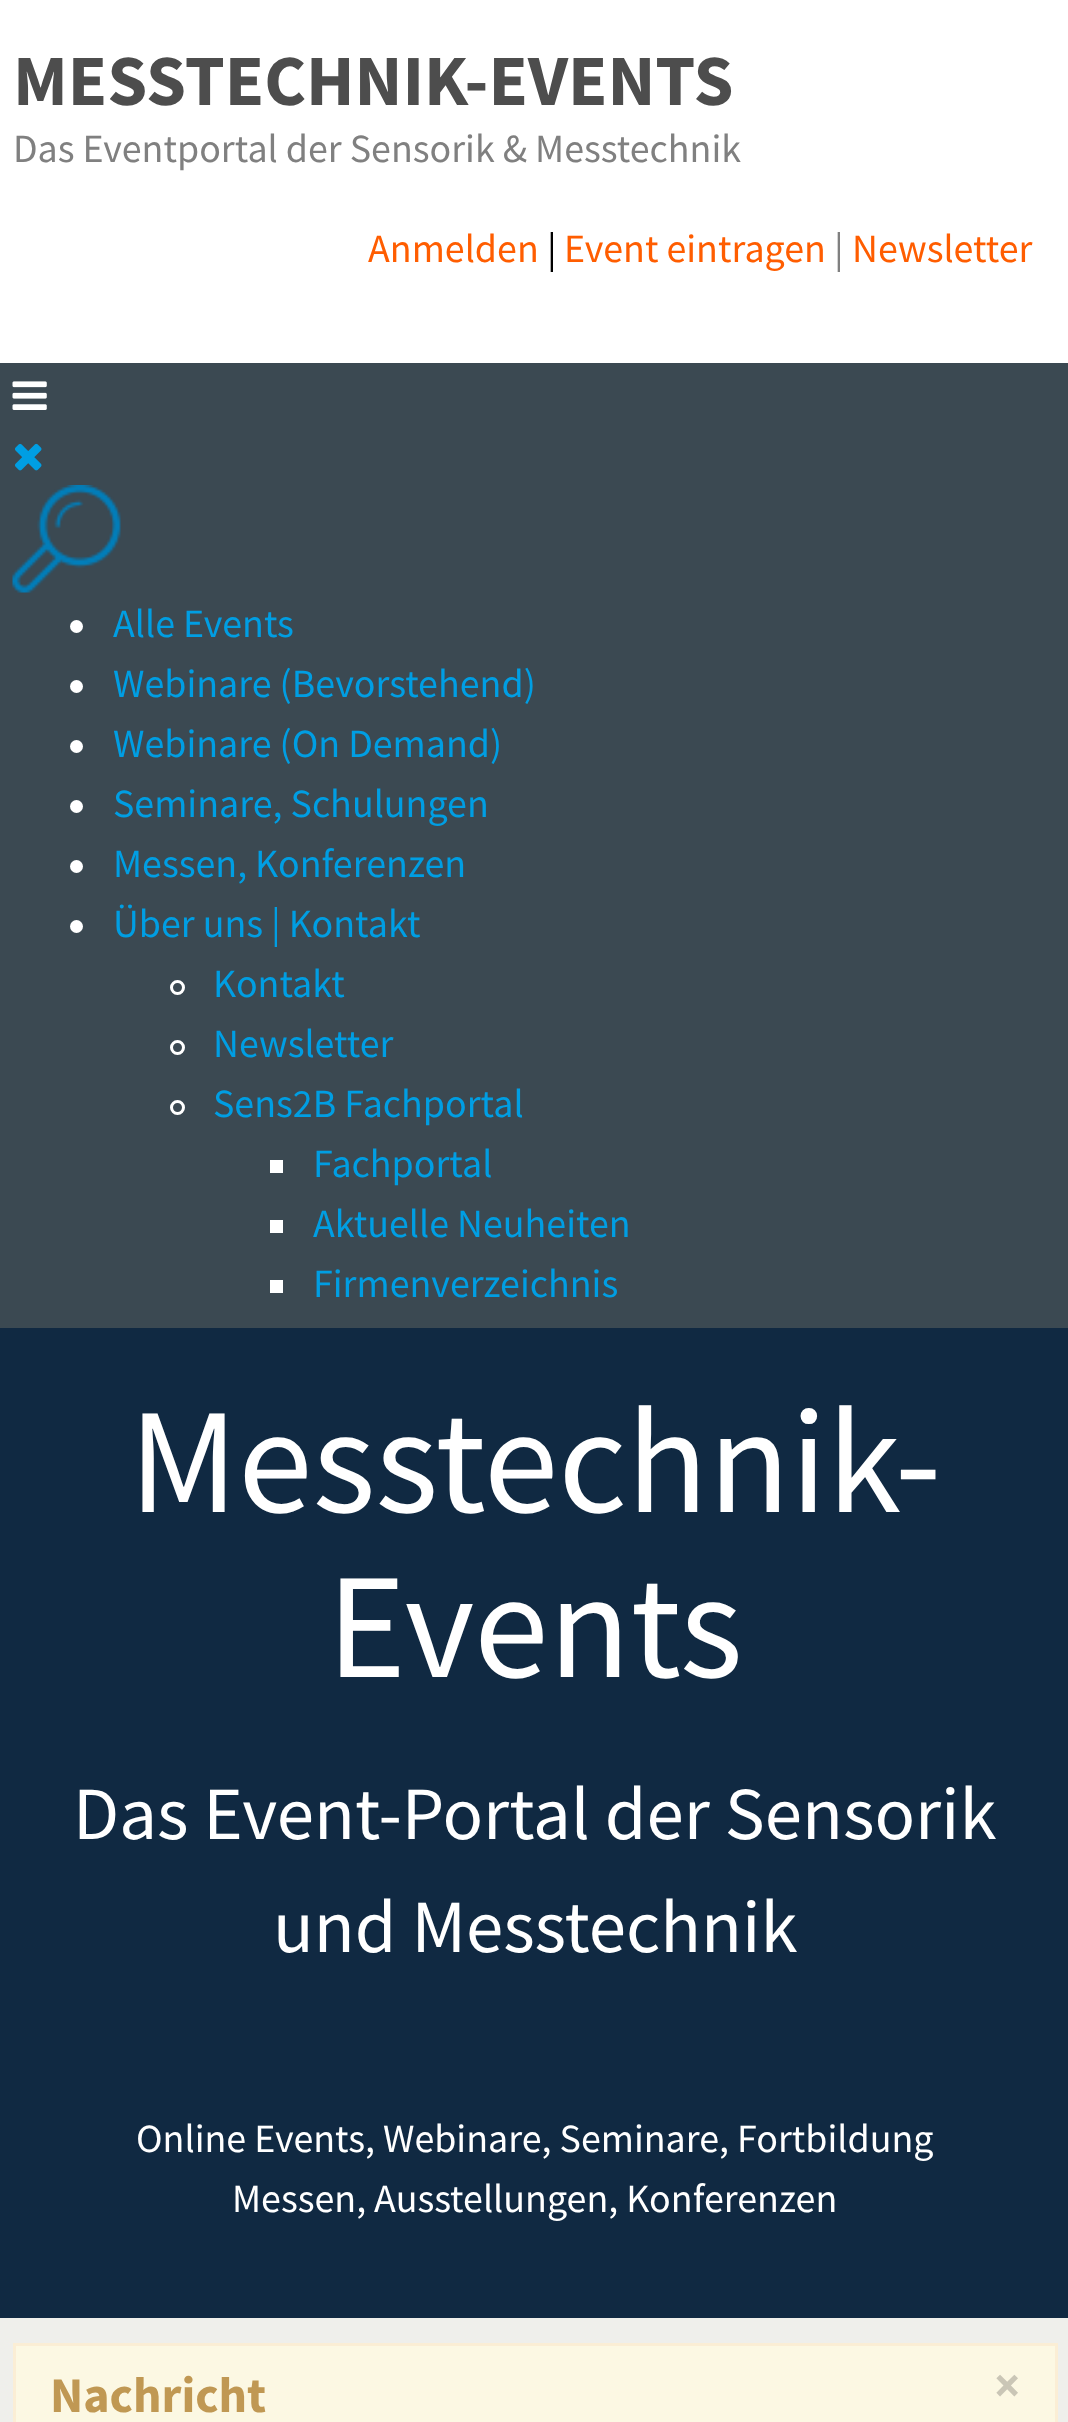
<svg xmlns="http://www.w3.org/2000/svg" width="1068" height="2422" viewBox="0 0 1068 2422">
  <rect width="100%" height="100%" fill="#efefeb"/>
  <rect x="0" y="0" width="1068" height="363" fill="#ffffff"/>
  <text x="13" y="105" font-family="Source Sans Pro" font-size="72" font-weight="bold" fill="#4d4d4d">MESSTECHNIK-EVENTS</text>
  <text x="13" y="162" font-family="Source Sans Pro" font-size="40" fill="#808080">Das Eventportal der Sensorik &amp; Messtechnik</text>
  <text x="368" y="262" font-family="Source Sans Pro" font-size="40" fill="#ff5d00">Anmelden</text>
  <text x="547" y="262" font-family="Source Sans Pro" font-size="40" fill="#000000">|</text>
  <text x="564" y="262" font-family="Source Sans Pro" font-size="40" fill="#ff5d00">Event eintragen</text>
  <text x="834" y="262" font-family="Source Sans Pro" font-size="40" fill="#808080">|</text>
  <text x="852" y="262" font-family="Source Sans Pro" font-size="40" fill="#ff5d00">Newsletter</text>
  <rect x="0" y="363" width="1068" height="965" fill="#3b4952"/>
  <image x="12" y="381" width="35" height="29" href="img1.png"/>
  <image x="15" y="443" width="27" height="28" href="img2.png"/>
  <image x="12" y="485" width="109" height="108" href="img3.png"/>
  <circle cx="76.5" cy="626.5" r="6.5" fill="#ffffff"/>
  <text x="113" y="637" font-family="Source Sans Pro" font-size="40" fill="#009ee3">Alle Events</text>
  <circle cx="76.5" cy="686.5" r="6.5" fill="#ffffff"/>
  <text x="113" y="697" font-family="Source Sans Pro" font-size="40" fill="#009ee3">Webinare (Bevorstehend)</text>
  <circle cx="76.5" cy="746.5" r="6.5" fill="#ffffff"/>
  <text x="113" y="757" font-family="Source Sans Pro" font-size="40" fill="#009ee3">Webinare (On Demand)</text>
  <circle cx="76.5" cy="806.5" r="6.5" fill="#ffffff"/>
  <text x="113" y="817" font-family="Source Sans Pro" font-size="40" fill="#009ee3">Seminare, Schulungen</text>
  <circle cx="76.5" cy="866.5" r="6.5" fill="#ffffff"/>
  <text x="113" y="877" font-family="Source Sans Pro" font-size="40" fill="#009ee3">Messen, Konferenzen</text>
  <circle cx="76.5" cy="926.5" r="6.5" fill="#ffffff"/>
  <text x="113" y="937" font-family="Source Sans Pro" font-size="40" fill="#009ee3">Über uns | Kontakt</text>
  <circle cx="177.5" cy="987.5" r="6" fill="none" stroke="#ffffff" stroke-width="3"/>
  <text x="213" y="997" font-family="Source Sans Pro" font-size="40" fill="#009ee3">Kontakt</text>
  <circle cx="177.5" cy="1047.5" r="6" fill="none" stroke="#ffffff" stroke-width="3"/>
  <text x="213" y="1057" font-family="Source Sans Pro" font-size="40" fill="#009ee3">Newsletter</text>
  <circle cx="177.5" cy="1107.5" r="6" fill="none" stroke="#ffffff" stroke-width="3"/>
  <text x="213" y="1117" font-family="Source Sans Pro" font-size="40" fill="#009ee3">Sens2B Fachportal</text>
  <rect x="270" y="1160" width="13" height="13" fill="#ffffff"/>
  <text x="313" y="1177" font-family="Source Sans Pro" font-size="40" fill="#009ee3">Fachportal</text>
  <rect x="270" y="1220" width="13" height="13" fill="#ffffff"/>
  <text x="313" y="1237" font-family="Source Sans Pro" font-size="40" fill="#009ee3">Aktuelle Neuheiten</text>
  <rect x="270" y="1280" width="13" height="13" fill="#ffffff"/>
  <text x="313" y="1297" font-family="Source Sans Pro" font-size="40" fill="#009ee3">Firmenverzeichnis</text>
  <rect x="0" y="1328" width="1068" height="990" fill="#102942"/>
  <text x="129" y="1512" font-family="Source Sans Pro" font-size="150" fill="#ffffff">Messtechnik-</text>
  <text x="327" y="1677" font-family="Source Sans Pro" font-size="150" fill="#ffffff">Events</text>
  <text x="73" y="1839" font-family="Source Sans Pro" font-size="75" fill="#ffffff">Das Event-Portal der Sensorik</text>
  <text x="273" y="1952" font-family="Source Sans Pro" font-size="75" fill="#ffffff">und Messtechnik</text>
  <text x="136" y="2152" font-family="Source Sans Pro" font-size="40" fill="#ffffff">Online Events, Webinare, Seminare, Fortbildung</text>
  <text x="232" y="2212" font-family="Source Sans Pro" font-size="40" fill="#ffffff">Messen, Ausstellungen, Konferenzen</text>
  <rect x="14.5" y="2344.5" width="1042" height="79" fill="#fcf8e3" stroke="#fbeed5" stroke-width="3"/>
  <text x="50" y="2412" font-family="Source Sans Pro" font-size="50" font-weight="bold" fill="#c09853">Nachricht</text>
  <text x="994" y="2402" font-family="Source Sans Pro" font-size="50" font-weight="bold" fill="#cac6b6">×</text>
</svg>
